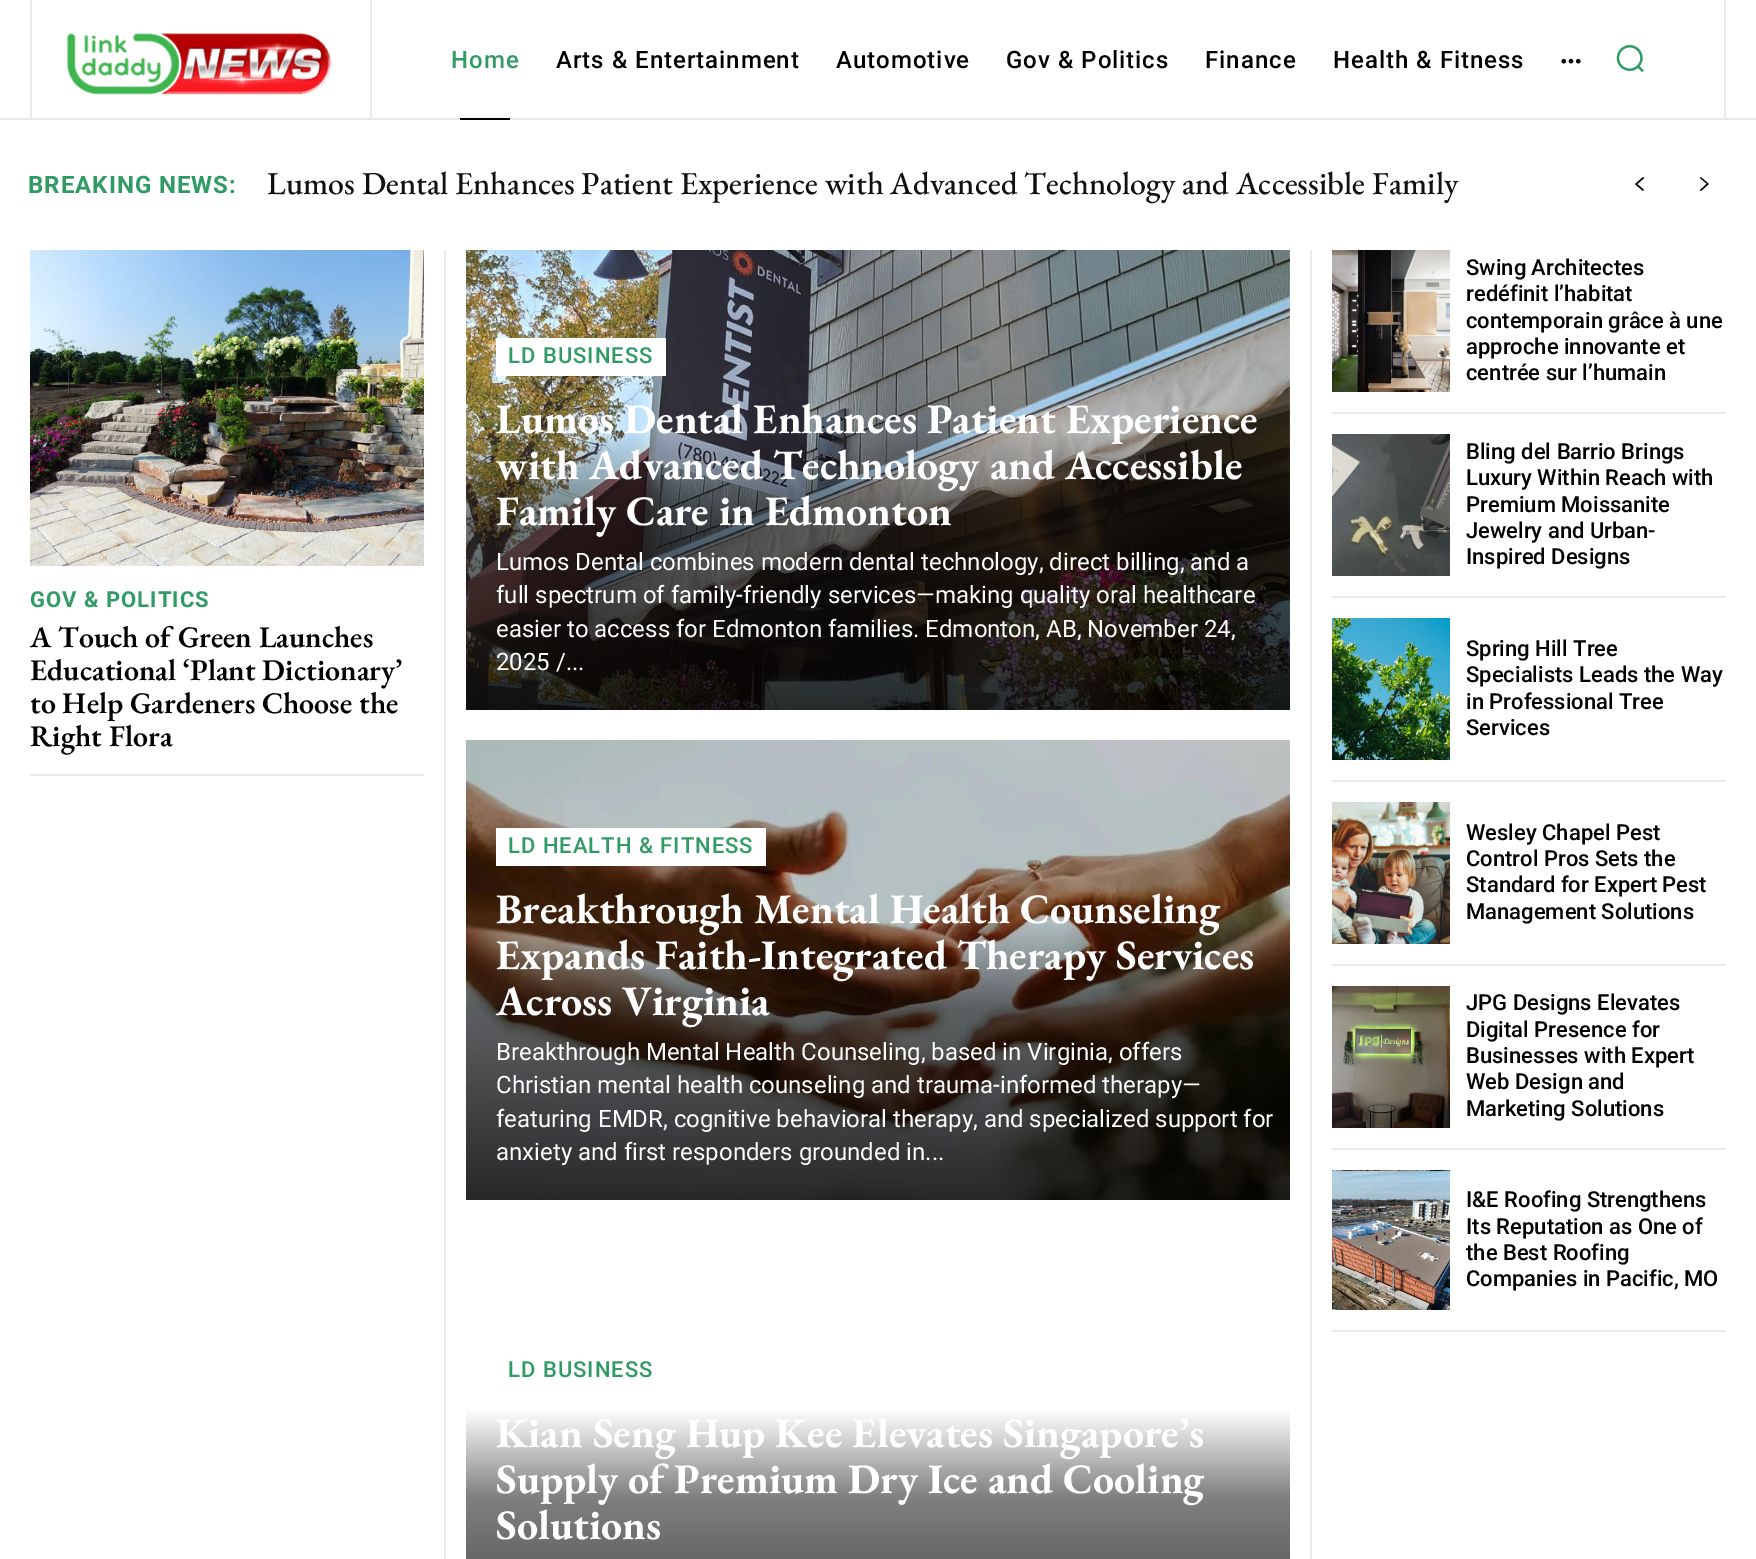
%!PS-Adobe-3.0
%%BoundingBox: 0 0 1756 1559
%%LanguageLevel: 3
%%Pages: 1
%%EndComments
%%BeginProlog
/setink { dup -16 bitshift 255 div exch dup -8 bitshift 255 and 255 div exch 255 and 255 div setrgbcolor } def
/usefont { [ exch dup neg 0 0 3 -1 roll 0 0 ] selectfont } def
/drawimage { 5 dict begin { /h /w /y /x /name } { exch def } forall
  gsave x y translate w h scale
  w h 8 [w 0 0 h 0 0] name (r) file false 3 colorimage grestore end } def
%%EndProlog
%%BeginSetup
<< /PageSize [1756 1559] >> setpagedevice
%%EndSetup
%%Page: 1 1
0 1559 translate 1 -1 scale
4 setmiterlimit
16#FFFFFF setink
0 0 1756 1559 rectfill
16#EAEAEA setink
0 118 1756 2 rectfill
30 0 2 118 rectfill
(img1.raw) 66 33 266 63 drawimage
1724 0 2 118 rectfill
370 0 2 118 rectfill
/Roboto-Medium 24 usefont
16#309B65 setink
451 68 moveto 1 0 (Home) ashow
16#000000 setink
460 118 50 2 rectfill
556 68 moveto 1 0 (Arts & Entertainment) ashow
836 68 moveto 1 0 (Automotive) ashow
1006 68 moveto 1 0 (Gov & Politics) ashow
1205 68 moveto 1 0 (Finance) ashow
1333 68 moveto 1 0 (Health & Fitness) ashow
(img2.raw) 1561 58 20 6 drawimage
(img3.raw) 1616 45 28 28 drawimage
/Roboto-Bold 24 usefont
16#309B65 setink
28 193 moveto 1 0 (BREAKING NEWS:) ashow
/EBGaramond-Medium 32 usefont
16#111111 setink
267 194 moveto (Lumos Dental Enhances Patient Experience with Advanced Technology and Accessible Family) show
(img4.raw) 1635 177 9 14 drawimage
(img5.raw) 1700 177 9 14 drawimage
16#EAEAEA setink
30 774 394 2 rectfill
(img6.raw) 30 250 394 316 drawimage
/Roboto-Bold 22 usefont
16#309B65 setink
30 607 moveto 1 0 (GOV & POLITICS) ashow
/EBGaramond-SemiBold 30 usefont
16#000000 setink
[
    [(A Touch of Green Launches) 30 647]
    [(Educational ‘Plant Dictionary’) 30 680]
    [(to Help Gardeners Choose the) 30 713]
    [(Right Flora) 30 746]
] { aload pop moveto show } forall
16#EAEAEA setink
1310 250 2 1309 rectfill
444 250 2 1309 rectfill
(img7.raw) 466 250 824 460 drawimage
16#FFFFFF setink
496 338 170 38 rectfill
/Roboto-Medium 22 usefont
16#309B65 setink
508 363 moveto 1 0 (LD BUSINESS) ashow
/EBGaramond-Bold 42 usefont
16#FFFFFF setink
[
    [(Lumos Dental Enhances Patient Experience) 496 433]
    [(with Advanced Technology and Accessible) 496 479]
    [(Family Care in Edmonton) 496 525]
] { aload pop moveto show } forall
/Roboto-Regular 24 usefont
[
    [(Lumos Dental combines modern dental technology, direct billing, and a) 496 570]
    [(full spectrum of family-friendly services—making quality oral healthcare) 496 603]
    [(easier to access for Edmonton families. Edmonton, AB, November 24,) 496 637]
    [(2025 /...) 496 670]
] { aload pop moveto show } forall
(img8.raw) 466 740 824 460 drawimage
496 828 270 38 rectfill
/Roboto-Medium 22 usefont
16#309B65 setink
508 853 moveto 1 0 (LD HEALTH & FITNESS) ashow
/EBGaramond-Bold 42 usefont
16#FFFFFF setink
[
    [(Breakthrough Mental Health Counseling) 496 923]
    [(Expands Faith-Integrated Therapy Services) 496 969]
    [(Across Virginia) 496 1015]
] { aload pop moveto show } forall
/Roboto-Regular 24 usefont
[
    [(Breakthrough Mental Health Counseling, based in Virginia, offers) 496 1060]
    [(Christian mental health counseling and trauma-informed therapy—) 496 1093]
    [(featuring EMDR, cognitive behavioral therapy, and specialized support for) 496 1127]
    [(anxiety and first responders grounded in...) 496 1160]
] { aload pop moveto show } forall
/Roboto-Medium 22 usefont
16#309B65 setink
508 1377 moveto 1 0 (LD BUSINESS) ashow
gsave 466 1411 moveto 1290 1411 lineto 1290 1559 lineto 466 1559 lineto closepath clip newpath
<< /ShadingType 2 /ColorSpace /DeviceRGB /Coords [878 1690 878 1230] /Extend [true true] /Function << /FunctionType 3 /Domain [0 1] /Functions [<< /FunctionType 2 /Domain [0 1] /C0 [0.2 0.2 0.2] /C1 [0.502 0.502 0.502] /N 1 >> << /FunctionType 2 /Domain [0 1] /C0 [0.502 0.502 0.502] /C1 [1 1 1] /N 1 >> << /FunctionType 2 /Domain [0 1] /C0 [1 1 1] /C1 [1 1 1] /N 1 >>] /Bounds [0.42 0.61] /Encode [0 1 0 1 0 1] >> >> shfill grestore
/EBGaramond-Bold 42 usefont
16#FFFFFF setink
[
    [(Kian Seng Hup Kee Elevates Singapore’s) 496 1447]
    [(Supply of Premium Dry Ice and Cooling) 496 1493]
    [(Solutions) 496 1539]
] { aload pop moveto show } forall
16#EAEAEA setink
1332 412 394 2 rectfill
(img9.raw) 1332 250 118 142 drawimage
/Roboto-Medium 22 usefont
16#000000 setink
[
    [(Swing Architectes) 1466 275]
    [(redéfinit l’habitat) 1466 301]
    [(contemporain grâce à une) 1466 328]
    [(approche innovante et) 1466 354]
    [(centrée sur l’humain) 1466 380]
] { aload pop moveto show } forall
16#EAEAEA setink
1332 596 394 2 rectfill
(img10.raw) 1332 434 118 142 drawimage
16#000000 setink
[
    [(Bling del Barrio Brings) 1466 459]
    [(Luxury Within Reach with) 1466 485]
    [(Premium Moissanite) 1466 512]
    [(Jewelry and Urban-) 1466 538]
    [(Inspired Designs) 1466 564]
] { aload pop moveto show } forall
16#EAEAEA setink
1332 780 394 2 rectfill
(img11.raw) 1332 618 118 142 drawimage
16#000000 setink
[
    [(Spring Hill Tree) 1466 656]
    [(Specialists Leads the Way) 1466 682]
    [(in Professional Tree) 1466 709]
    [(Services) 1466 735]
] { aload pop moveto show } forall
16#EAEAEA setink
1332 964 394 2 rectfill
(img12.raw) 1332 802 118 142 drawimage
16#000000 setink
[
    [(Wesley Chapel Pest) 1466 840]
    [(Control Pros Sets the) 1466 866]
    [(Standard for Expert Pest) 1466 892]
    [(Management Solutions) 1466 919]
] { aload pop moveto show } forall
16#EAEAEA setink
1332 1148 394 2 rectfill
(img13.raw) 1332 986 118 142 drawimage
16#000000 setink
[
    [(JPG Designs Elevates) 1466 1010]
    [(Digital Presence for) 1466 1037]
    [(Businesses with Expert) 1466 1063]
    [(Web Design and) 1466 1089]
    [(Marketing Solutions) 1466 1116]
] { aload pop moveto show } forall
16#EAEAEA setink
1332 1330 394 2 rectfill
(img14.raw) 1332 1170 118 140 drawimage
16#000000 setink
[
    [(I&E Roofing Strengthens) 1466 1207]
    [(Its Reputation as One of) 1466 1234]
    [(the Best Roofing) 1466 1260]
    [(Companies in Pacific, MO) 1466 1286]
] { aload pop moveto show } forall
showpage
%%EOF
